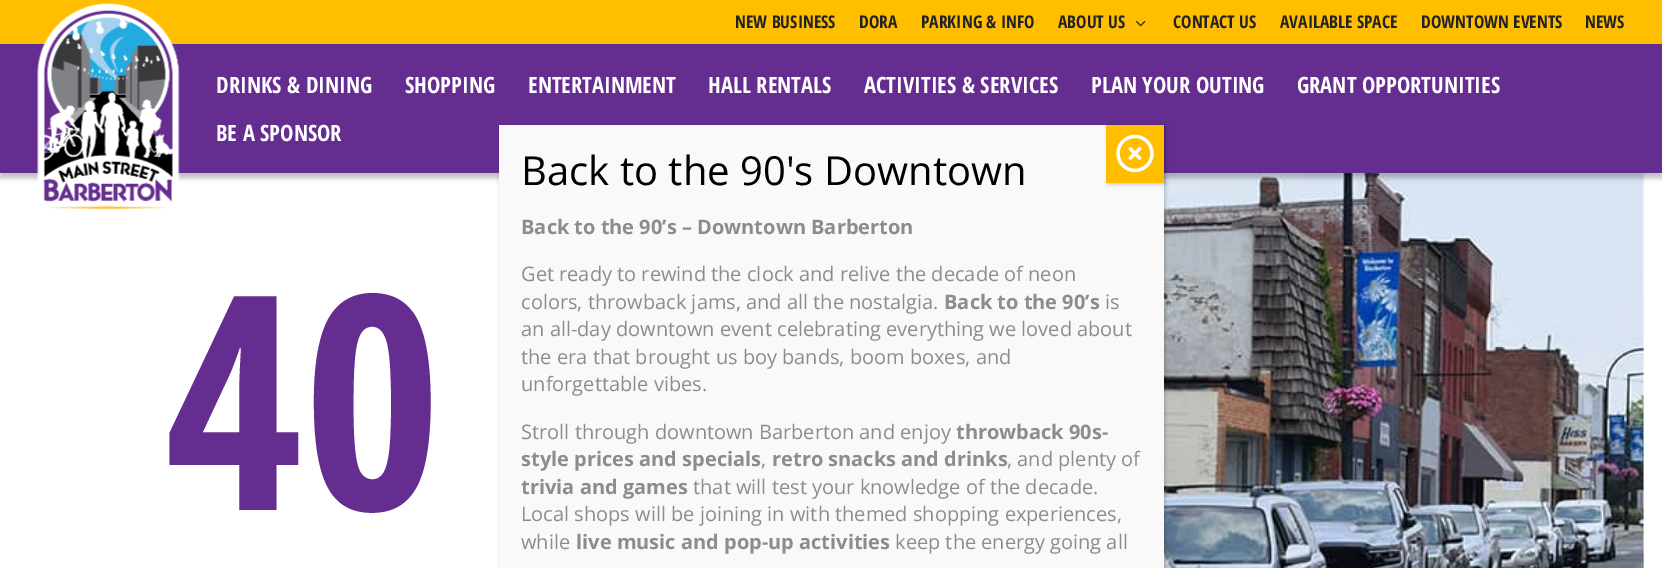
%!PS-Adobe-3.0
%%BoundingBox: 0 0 1662 568
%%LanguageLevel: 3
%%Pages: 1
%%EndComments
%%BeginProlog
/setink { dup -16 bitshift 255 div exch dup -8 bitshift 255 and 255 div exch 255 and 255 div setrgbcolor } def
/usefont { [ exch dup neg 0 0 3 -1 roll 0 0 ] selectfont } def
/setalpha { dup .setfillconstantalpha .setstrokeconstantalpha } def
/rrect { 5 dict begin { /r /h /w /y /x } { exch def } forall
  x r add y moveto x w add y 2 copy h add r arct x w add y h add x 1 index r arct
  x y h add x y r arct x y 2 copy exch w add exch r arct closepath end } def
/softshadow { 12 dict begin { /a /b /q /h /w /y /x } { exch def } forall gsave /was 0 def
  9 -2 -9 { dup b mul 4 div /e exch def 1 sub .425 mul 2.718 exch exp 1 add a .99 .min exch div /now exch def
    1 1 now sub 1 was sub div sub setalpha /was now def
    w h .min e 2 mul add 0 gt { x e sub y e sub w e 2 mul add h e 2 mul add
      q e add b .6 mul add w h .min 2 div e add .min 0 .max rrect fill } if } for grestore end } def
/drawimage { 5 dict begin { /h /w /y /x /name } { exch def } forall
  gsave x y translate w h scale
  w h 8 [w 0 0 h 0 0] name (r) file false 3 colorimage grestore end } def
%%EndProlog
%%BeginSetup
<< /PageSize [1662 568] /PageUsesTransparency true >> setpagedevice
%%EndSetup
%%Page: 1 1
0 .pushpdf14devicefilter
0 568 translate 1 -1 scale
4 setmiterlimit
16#FFFFFF setink
0 0 1662 568 rectfill
16#FFBE00 setink
0 0 1662 44 rectfill
/OpenSansCondensed-Bold 17.5 usefont
16#232323 setink
[
    [(NEW BUSINESS) 735 28]
    [(DORA) 859 28]
    [(PARKING & INFO) 921 28]
    [(ABOUT US) 1058 28]
] { aload pop moveto show } forall
(img1.raw) 1136 21 10 6 drawimage
[
    [(CONTACT US) 1173 28]
    [(AVAILABLE SPACE) 1280 28]
    [(DOWNTOWN EVENTS) 1421 28]
    [(NEWS) 1585 28]
] { aload pop moveto show } forall
(img3.raw) 1164 173 480 395 drawimage
16#000000 setink
0 49 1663 129 0 2.5 0.25 softshadow
16#662D91 setink
0 44 1662 129 rectfill
(img2.raw) 37 3 143 207 drawimage
/OpenSansCondensed-Bold 22.5 usefont
16#FFFFFF setink
[
    [(DRINKS & DINING) 216 93]
    [(SHOPPING) 405 93]
    [(ENTERTAINMENT) 528 93]
    [(HALL RENTALS) 708 93]
    [(ACTIVITIES & SERVICES) 864 93]
    [(PLAN YOUR OUTING) 1091 93]
    [(GRANT OPPORTUNITIES) 1297 93]
    [(BE A SPONSOR) 216 141]
] { aload pop moveto show } forall
/OpenSansCondensed-Bold 300 usefont
16#662D91 setink
164 510 moveto (40) show
16#020202 setink
500 126 665 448 0 2 0.23 softshadow
16#F9F9F9 setink
499 125 665 443 rectfill
/OpenSans-Regular 40 usefont
16#000000 setink
521 185 moveto (Back to the 90's Downtown) show
16#020202 setink
1108 126 57 58 0 2 0.23 softshadow
16#FFBE00 setink
1106 125 58 58 rectfill
(img4.raw) 1116 134 38 39 drawimage
/OpenSans-Bold 20 usefont
16#8C8C8C setink
521 234 moveto (Back to the 90’s – Downtown Barberton) show
/OpenSans-Regular 20 usefont
521 281 moveto (Get ready to rewind the clock and relive the decade of neon) show
521 309 moveto (colors, throwback jams, and all the nostalgia.) show
/OpenSans-Bold 20 usefont
944 309 moveto (Back to the 90’s) show
/OpenSans-Regular 20 usefont
[
    [(is) 1105 309]
    [(an all-day downtown event celebrating everything we loved about) 521 336]
    [(the era that brought us boy bands, boom boxes, and) 521 364]
    [(unforgettable vibes.) 521 391]
    [(Stroll through downtown Barberton and enjoy) 521 439]
] { aload pop moveto show } forall
/OpenSans-Bold 20 usefont
956 439 moveto (throwback 90s-) show
521 466 moveto (style prices and specials) show
/OpenSans-Regular 20 usefont
761 466 moveto (,) show
/OpenSans-Bold 20 usefont
772 466 moveto (retro snacks and drinks) show
/OpenSans-Regular 20 usefont
1007 466 moveto (, and plenty of) show
/OpenSans-Bold 20 usefont
521 494 moveto (trivia and games) show
/OpenSans-Regular 20 usefont
[
    [(that will test your knowledge of the decade.) 693 494]
    [(Local shops will be joining in with themed shopping experiences,) 521 521]
    [(while) 521 549]
] { aload pop moveto show } forall
/OpenSans-Bold 20 usefont
576 549 moveto (live music and pop-up activities) show
/OpenSans-Regular 20 usefont
895 549 moveto (keep the energy going all) show
.poppdf14devicefilter showpage
%%EOF
